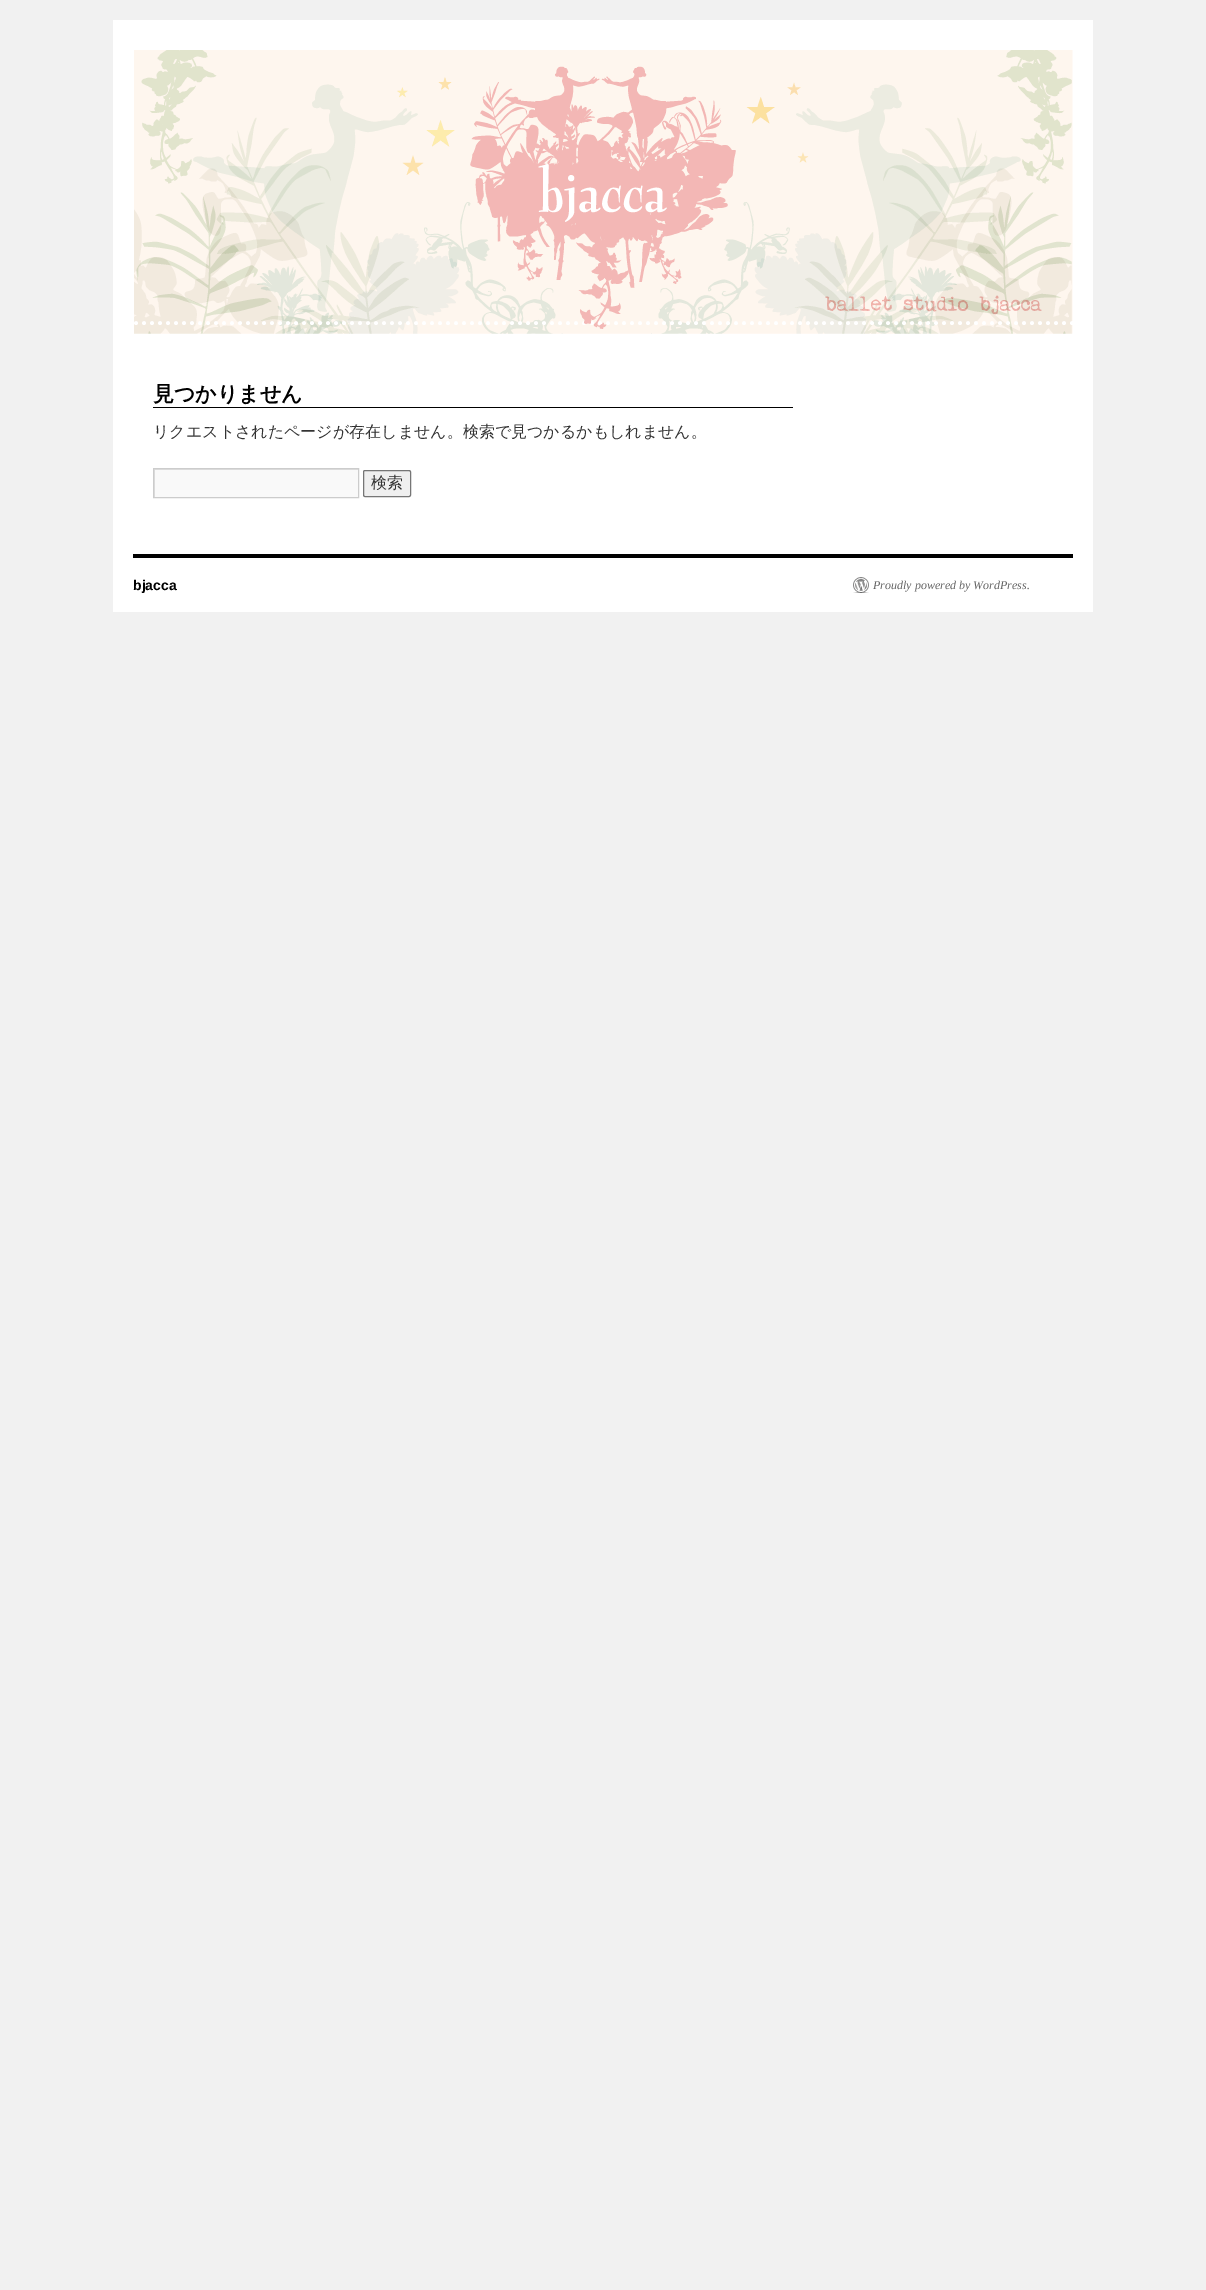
%!PS-Adobe-3.0
%%BoundingBox: 0 0 1206 2290
%%LanguageLevel: 3
%%Pages: 1
%%EndComments
%%BeginProlog
/setink { dup -16 bitshift 255 div exch dup -8 bitshift 255 and 255 div exch 255 and 255 div setrgbcolor } def
/usefont { [ exch dup neg 0 0 3 -1 roll 0 0 ] selectfont } def
/rrect { 5 dict begin { /r /h /w /y /x } { exch def } forall
  x r add y moveto x w add y 2 copy h add r arct x w add y h add x 1 index r arct
  x y h add x y r arct x y 2 copy exch w add exch r arct closepath end } def
/drawimage { 5 dict begin { /h /w /y /x /name } { exch def } forall
  gsave x y translate w h scale
  w h 8 [w 0 0 h 0 0] name (r) file false 3 colorimage grestore end } def
%%EndProlog
%%BeginSetup
<< /PageSize [1206 2290] >> setpagedevice
%%EndSetup
%%Page: 1 1
0 2290 translate 1 -1 scale
4 setmiterlimit
16#F1F1F1 setink
0 0 1206 2290 rectfill
16#FFFFFF setink
113 20 980 592 rectfill
(img1.raw) 134 50 939 284 drawimage
16#000000 setink
153 407 640 1 rectfill
/WenQuanYiZenHei-Bold 21 usefont
153 401 moveto (見つかりません) show
/WenQuanYiZenHei-Medium 16 usefont
16#333333 setink
153 437 moveto (リクエストされたページが存在しません。検索で見つかるかもしれません。) show
16#F9F9F9 setink
155 470 203 27 rectfill
gsave
154 469 204 28 rectclip
16#E0E0E0 setink
55 370 moveto 457 370 lineto 457 596 lineto 55 596 lineto closepath 155 470 moveto 359 470 lineto 359 498 lineto 155 498 lineto closepath eofill
grestore
16#CCCCCC setink
153.5 468.5 205 29 rectstroke
16#EFEFEF setink
363.5 470.5 47 26 1.5 rrect gsave fill grestore
16#767676 setink
stroke
16#333333 setink
371 488 moveto (検索) show
16#000000 setink
133 554 940 4 rectfill
/LiberationSans-Bold 14 usefont
133 590 moveto (bjacca) show
(img2.raw) 853 577 16 16 drawimage
/LiberationSerif-Italic 12 usefont
16#666666 setink
873 589 moveto (Proudly powered by WordPress.) show
showpage
%%EOF
